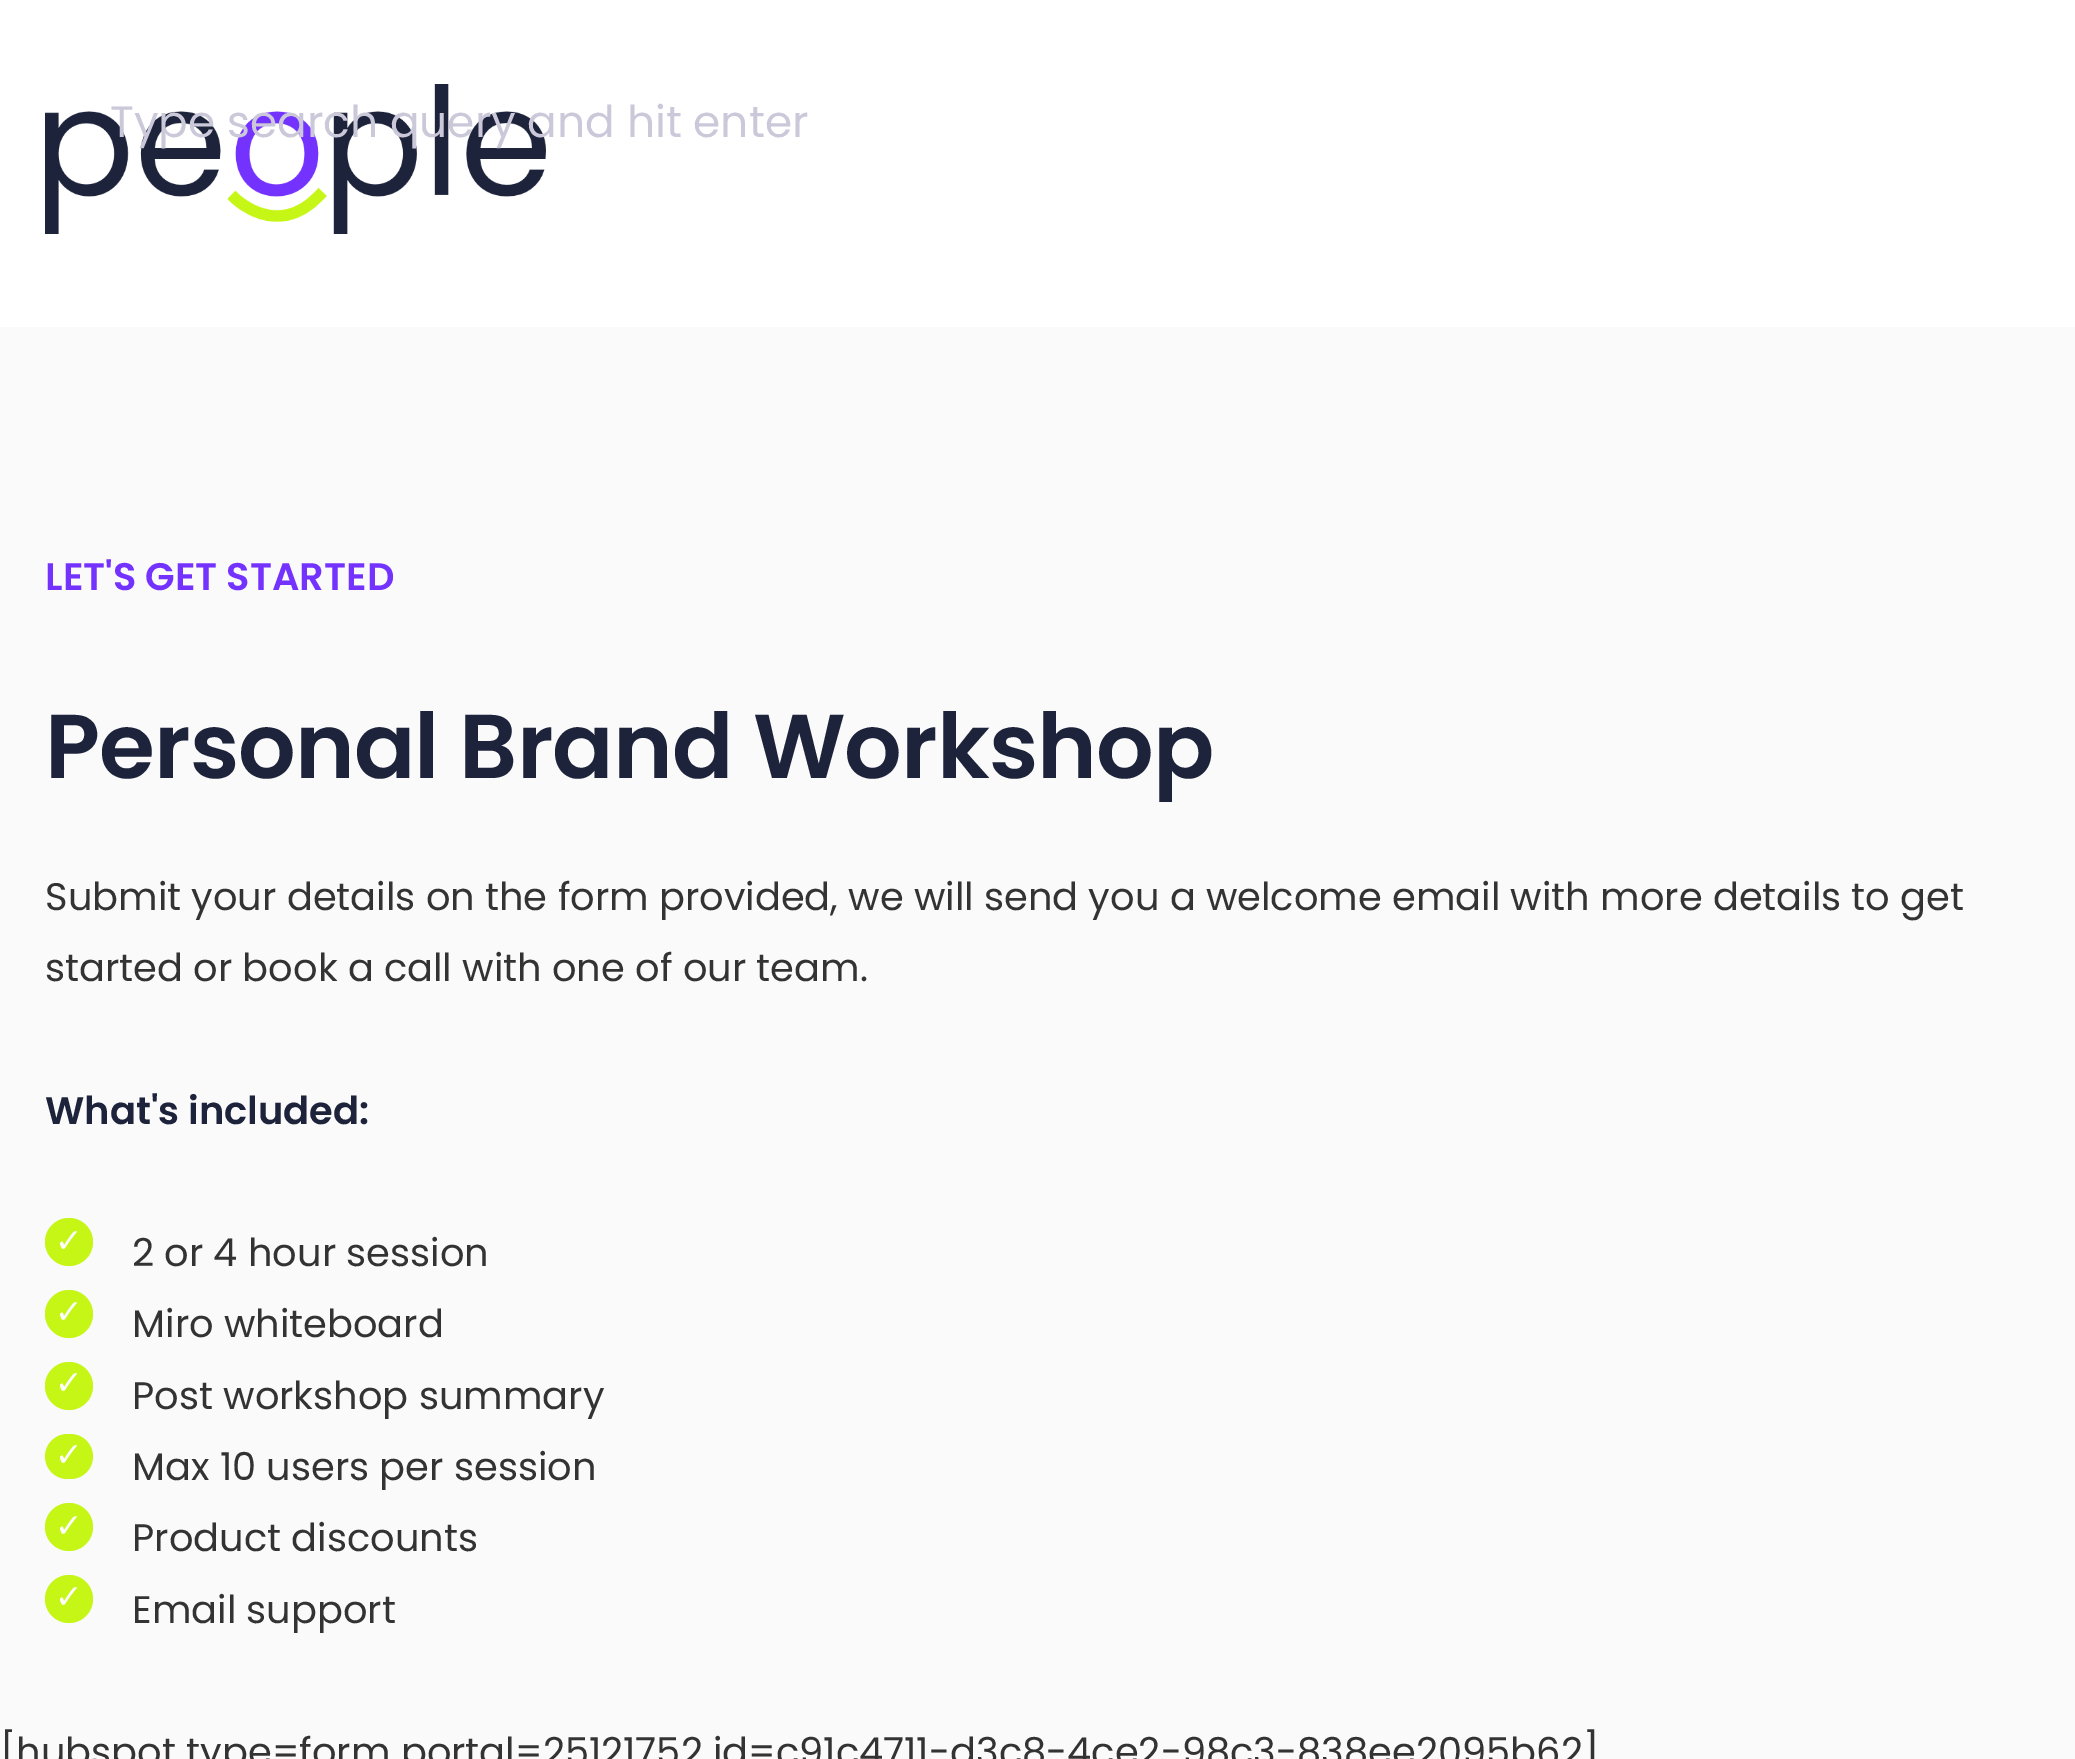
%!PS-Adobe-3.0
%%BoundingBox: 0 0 2075 1759
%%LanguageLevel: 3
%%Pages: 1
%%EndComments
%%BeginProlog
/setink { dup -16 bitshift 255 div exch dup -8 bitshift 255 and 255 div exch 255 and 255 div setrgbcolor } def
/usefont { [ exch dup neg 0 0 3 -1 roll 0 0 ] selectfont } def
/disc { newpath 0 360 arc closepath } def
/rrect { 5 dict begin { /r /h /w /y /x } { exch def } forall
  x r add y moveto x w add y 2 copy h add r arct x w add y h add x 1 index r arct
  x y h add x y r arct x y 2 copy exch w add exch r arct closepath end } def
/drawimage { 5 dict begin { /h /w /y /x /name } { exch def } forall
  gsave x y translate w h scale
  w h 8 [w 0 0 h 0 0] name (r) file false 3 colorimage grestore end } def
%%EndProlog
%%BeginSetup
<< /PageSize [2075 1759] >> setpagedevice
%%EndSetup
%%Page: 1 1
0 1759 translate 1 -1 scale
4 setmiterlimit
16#FFFFFF setink
0 0 2075 1759 rectfill
(img1.raw) 45 84 501 150 drawimage
/Poppins-Regular 43.9 usefont
16#CBC8D9 setink
110 137 moveto (Type search query and hit enter) show
16#FAFAFA setink
0 327 2075 1432 rectfill
/Poppins-SemiBold 38.4 usefont
16#7432FF setink
45 590 moveto (LET'S GET STARTED) show
/Poppins-SemiBold 90.5 usefont
16#1D233A setink
45 778 moveto -0.9 0 (Personal Brand Workshop) ashow
/Poppins-Regular 38.4 usefont
16#333333 setink
45 910 moveto (Submit your details on the form provided, we will send you a welcome email with more details to get) show
45 981 moveto (started or book a call with one of our team.) show
/Poppins-SemiBold 38.4 usefont
16#1D233A setink
45 1124 moveto (What's included:) show
16#C5F616 setink
69 1242 24 disc fill
/DejaVuSans-Regular 33 usefont
16#FFFFFF setink
55 1252 moveto (✓) show
/Poppins-Regular 38.4 usefont
16#333333 setink
132 1266 moveto (2 or 4 hour session) show
16#C5F616 setink
69 1314 24 disc fill
/DejaVuSans-Regular 33 usefont
16#FFFFFF setink
55 1323 moveto (✓) show
/Poppins-Regular 38.4 usefont
16#333333 setink
132 1337 moveto (Miro whiteboard) show
16#C5F616 setink
69 1386 24 disc fill
/DejaVuSans-Regular 33 usefont
16#FFFFFF setink
55 1394 moveto (✓) show
/Poppins-Regular 38.4 usefont
16#333333 setink
132 1409 moveto (Post workshop summary) show
16#C5F616 setink
45 1434 48 45 22.5 rrect fill
/DejaVuSans-Regular 33 usefont
16#FFFFFF setink
55 1466 moveto (✓) show
/Poppins-Regular 38.4 usefont
16#333333 setink
132 1480 moveto (Max 10 users per session) show
16#C5F616 setink
69 1527 24 disc fill
/DejaVuSans-Regular 33 usefont
16#FFFFFF setink
55 1537 moveto (✓) show
/Poppins-Regular 38.4 usefont
16#333333 setink
132 1551 moveto (Product discounts) show
16#C5F616 setink
69 1599 24 disc fill
/DejaVuSans-Regular 33 usefont
16#FFFFFF setink
55 1608 moveto (✓) show
/Poppins-Regular 38.4 usefont
16#333333 setink
132 1623 moveto (Email support) show
0 1765 moveto ([hubspot type=form portal=25121752 id=c91c4711-d3c8-4ce2-98c3-838ee2095b62]) show
showpage
%%EOF
